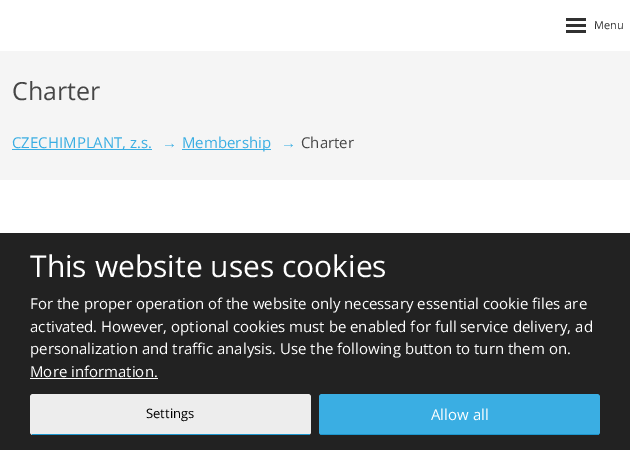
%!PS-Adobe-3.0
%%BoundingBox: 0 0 630 450
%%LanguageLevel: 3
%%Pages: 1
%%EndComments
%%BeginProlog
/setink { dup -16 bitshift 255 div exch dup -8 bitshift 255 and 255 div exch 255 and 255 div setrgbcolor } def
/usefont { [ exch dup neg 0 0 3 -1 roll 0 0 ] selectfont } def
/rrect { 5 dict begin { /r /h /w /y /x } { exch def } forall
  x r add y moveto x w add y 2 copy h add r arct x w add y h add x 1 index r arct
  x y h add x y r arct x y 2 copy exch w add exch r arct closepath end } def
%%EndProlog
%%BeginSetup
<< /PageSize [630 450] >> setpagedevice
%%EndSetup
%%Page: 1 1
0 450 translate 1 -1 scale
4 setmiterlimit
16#FFFFFF setink
0 0 630 450 rectfill
16#313131 setink
566 18 20 3 rectfill
566 24 20 3 rectfill
/OpenSans-Regular 11 usefont
594 29 moveto (Menu) show
566 30 20 3 rectfill
16#F5F5F5 setink
0 51 630 129 rectfill
/OpenSans-Regular 25 usefont
16#464646 setink
12 100 moveto (Charter) show
16#3AAEE3 setink
12 149 140 1 rectfill
/OpenSans-Regular 15 usefont
12 148 moveto (CZECHIMPLANT, z.s.) show
/LiberationSans-Bold 15 usefont
162 148 moveto (→) show
182 149 89 1 rectfill
/OpenSans-Regular 15 usefont
182 148 moveto (Membership) show
/LiberationSans-Bold 15 usefont
281 148 moveto (→) show
/OpenSans-Regular 15 usefont
16#464646 setink
301 148 moveto (Charter) show
16#222222 setink
0 233 630 217 rectfill
/OpenSans-Regular 30 usefont
16#FFFFFF setink
30 277 moveto (This website uses cookies) show
/OpenSans-Regular 15 usefont
[
    [(For the proper operation of the website only necessary essential cookie files are) 30 309]
    [(activated. However, optional cookies must be enabled for full service delivery, ad) 30 332]
    [(personalization and traffic analysis. Use the following button to turn them on.) 30 354]
    [(More information.) 30 377]
] { aload pop moveto show } forall
30 378 128 1 rectfill
16#EDEDED setink
30 394 281 41 3 rrect fill
16#1D96CD setink
32 434 278 1 rectfill
/OpenSans-Regular 13 usefont
16#000000 setink
146 418 moveto (Settings) show
16#3AAEE3 setink
319 394 281 41 3 rrect fill
16#1D96CD setink
321 434 278 1 rectfill
/OpenSans-Regular 15 usefont
16#FFFFFF setink
431 420 moveto (Allow all) show
showpage
%%EOF
